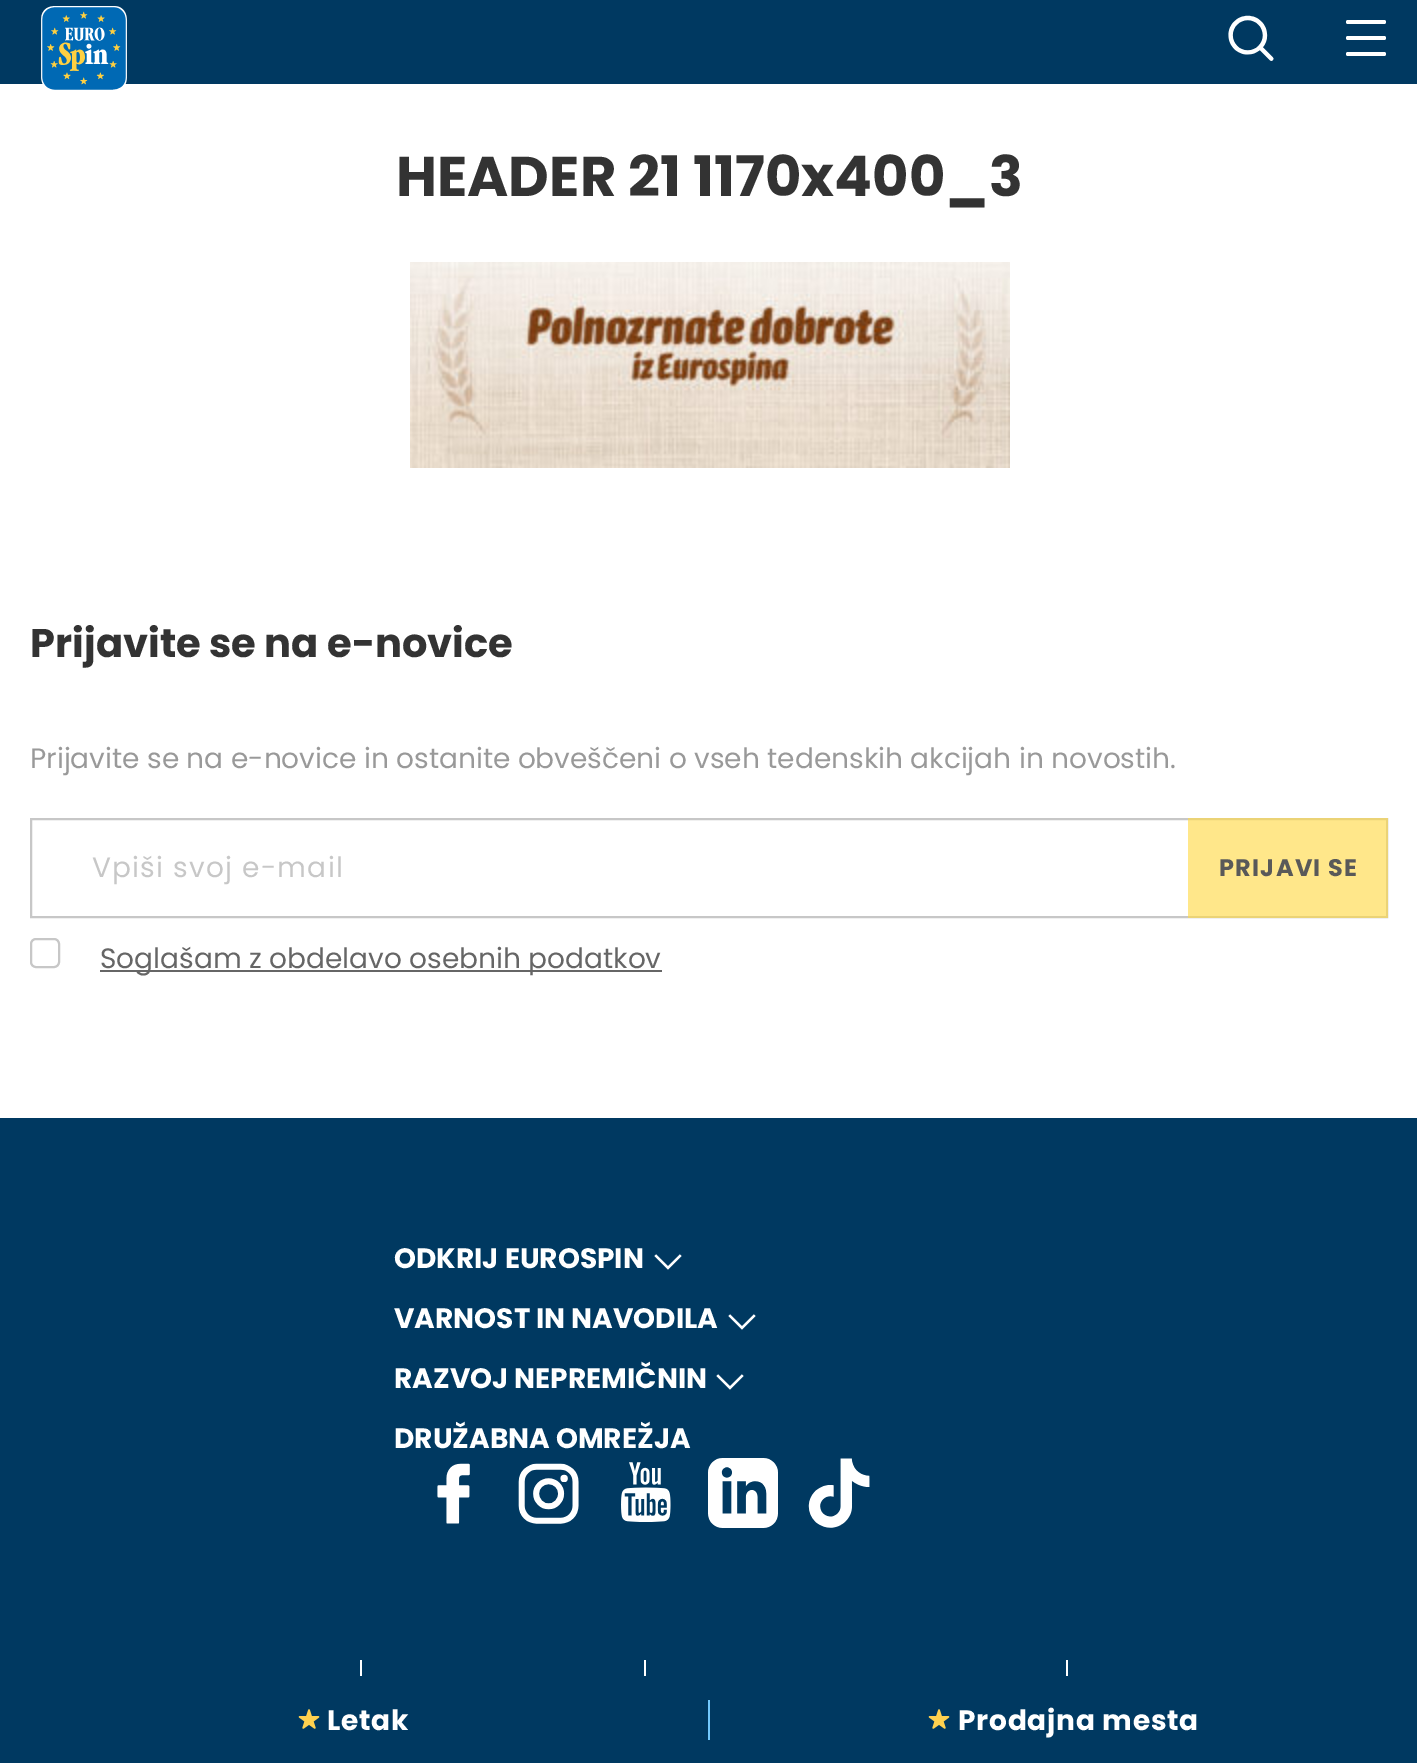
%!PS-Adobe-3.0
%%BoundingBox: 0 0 1417 1763
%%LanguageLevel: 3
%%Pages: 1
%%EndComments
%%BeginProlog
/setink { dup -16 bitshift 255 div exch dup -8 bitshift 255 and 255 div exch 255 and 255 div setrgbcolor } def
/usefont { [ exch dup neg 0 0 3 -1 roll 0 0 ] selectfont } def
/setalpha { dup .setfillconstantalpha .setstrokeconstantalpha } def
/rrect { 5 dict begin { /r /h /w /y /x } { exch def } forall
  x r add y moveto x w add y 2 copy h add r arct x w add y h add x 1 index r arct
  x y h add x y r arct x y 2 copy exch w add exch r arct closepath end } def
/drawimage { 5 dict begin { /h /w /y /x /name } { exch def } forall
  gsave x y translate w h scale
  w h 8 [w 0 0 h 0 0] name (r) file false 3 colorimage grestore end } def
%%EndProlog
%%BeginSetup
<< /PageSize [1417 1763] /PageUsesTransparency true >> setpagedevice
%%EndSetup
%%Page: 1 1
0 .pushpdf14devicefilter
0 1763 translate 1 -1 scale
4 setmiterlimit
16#FFFFFF setink
0 0 1417 1763 rectfill
16#003961 setink
0 0 1417 84 rectfill
(img1.raw) 41 6 86 84 drawimage
(img2.raw) 1228 15 46 46 drawimage
16#FFFFFF setink
1346 20 40 4 2 rrect fill
1346 36 40 4 2 rrect fill
1346 52 40 4 2 rrect fill
/Poppins-Bold 56 usefont
16#333333 setink
396 196 moveto (HEADER 21 1170x400_3) show
(img3.raw) 410 262 600 206 drawimage
/Poppins-Bold 40 usefont
30 657 moveto (Prijavite se na e-novice) show
/Poppins-Regular 28 usefont
16#999999 setink
30 768 moveto (Prijavite se na e-novice in ostanite obveščeni o vseh tedenskih akcijah in novostih.) show
16#C7C7C7 setink
2 setlinewidth
31 819 1356 98 rectstroke
92 877 moveto 1.25 0 (Vpiši svoj e-mail) ashow
0.65 setalpha
16#FFDA4B setink
1188 818 200 100 rectfill
/Poppins-Bold 24 usefont
1 setalpha
16#595959 setink
1219 876 moveto 1.25 0 (PRIJAVI SE) ashow
16#C7C7C7 setink
31 939 28 28 5 rrect stroke
16#666666 setink
100 970 562 2 rectfill
/Poppins-Regular 28 usefont
100 968 moveto (Soglašam z obdelavo osebnih podatkov) show
16#003961 setink
0 1118 1417 645 rectfill
/Poppins-Bold 28 usefont
16#FFFFFF setink
394 1268 moveto (ODKRIJ EUROSPIN) show
(img4.raw) 654 1254 28 16 drawimage
394 1328 moveto (VARNOST IN NAVODILA) show
(img4.raw) 728 1314 28 16 drawimage
394 1388 moveto (RAZVOJ NEPREMIČNIN) show
(img4.raw) 716 1374 28 16 drawimage
394 1448 moveto (DRUŽABNA OMREŽJA) show
(img5.raw) 437 1463 33 61 drawimage
(img6.raw) 518 1463 61 61 drawimage
(img7.raw) 621 1462 50 60 drawimage
(img8.raw) 708 1458 70 70 drawimage
(img9.raw) 808 1458 62 70 drawimage
[
    [360 1660 2 16 16#FFFFFF]
    [644 1660 2 16 16#FFFFFF]
    [1066 1660 2 16 16#FFFFFF]
    [708 1700 2 40 16#72C8FC]
] { aload pop setink rectfill } forall
(img10.raw) 298 1709 22 20 drawimage
16#FFFFFF setink
327 1730 moveto 0.75 0 (Letak) ashow
(img10.raw) 928 1709 22 20 drawimage
958 1730 moveto 0.75 0 (Prodajna mesta) ashow
.poppdf14devicefilter showpage
%%EOF
